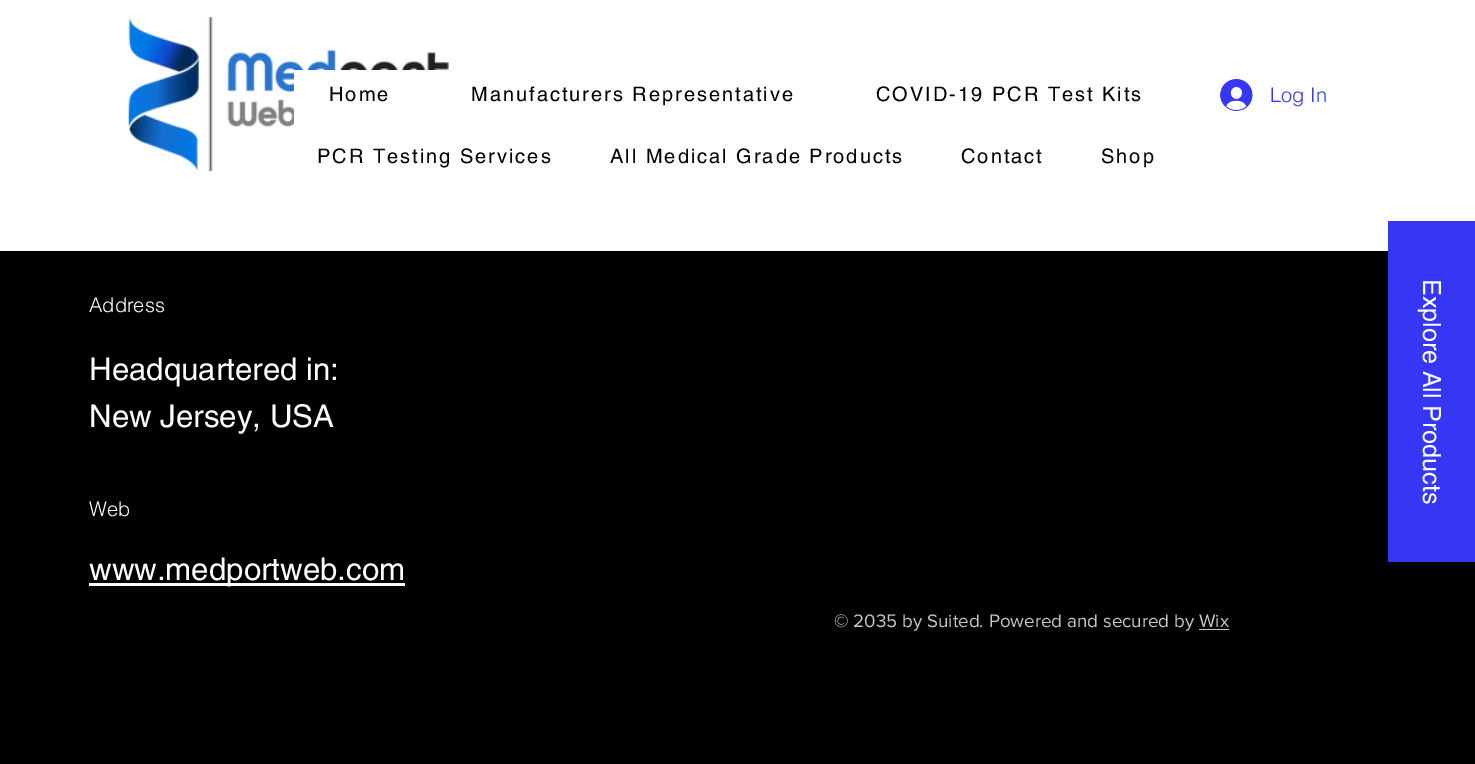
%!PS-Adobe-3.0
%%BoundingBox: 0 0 1475 764
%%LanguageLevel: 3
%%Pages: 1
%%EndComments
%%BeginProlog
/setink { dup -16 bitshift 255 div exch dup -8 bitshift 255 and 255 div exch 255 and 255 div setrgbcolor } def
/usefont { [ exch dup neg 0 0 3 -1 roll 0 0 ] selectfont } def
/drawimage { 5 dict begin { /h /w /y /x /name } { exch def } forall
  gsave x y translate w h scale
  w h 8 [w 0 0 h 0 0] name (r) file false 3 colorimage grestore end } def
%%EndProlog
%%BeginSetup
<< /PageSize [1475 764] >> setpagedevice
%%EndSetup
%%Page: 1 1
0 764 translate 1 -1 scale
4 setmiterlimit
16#000000 setink
0 0 1475 764 rectfill
16#FFFFFF setink
0 0 1475 251 rectfill
(img1.raw) 128 17 321 154 drawimage
294 70 155 55 rectfill
/helvetica-Regular 20 usefont
16#000000 setink
329 101 moveto 2 0 (Home) ashow
471 101 moveto 2 0 (Manufacturers Representative) ashow
876 101 moveto 2 0 (COVID-19 PCR Test Kits) ashow
317 163 moveto 2 0 (PCR Testing Services) ashow
610 163 moveto 2 0 (All Medical Grade Products) ashow
961 163 moveto 2 0 (Contact) ashow
1101 163 moveto 2 0 (Shop) ashow
(img2.raw) 1220 79 33 32 drawimage
/helvetica-Light 20 usefont
16#3637F5 setink
1270 102 moveto (Log In) show
16#FFFFFF setink
89 312 moveto (Address) show
/helvetica-Regular 31.25 usefont
89 380 moveto (Headquartered in:) show
89 427 moveto (New Jersey, USA) show
/helvetica-Light 20 usefont
89 516 moveto (Web) show
89 583 316 3 rectfill
/helvetica-Regular 31.25 usefont
89 580 moveto (www.medportweb.com) show
/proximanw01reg-Regular 18.75 usefont
16#C7C7C7 setink
834 627 moveto (© 2035 by Suited. Powered and secured by Wix) show
1199 629 30 1 rectfill
16#3637F5 setink
1388 221 87 341 rectfill
/helvetica-Regular 25 usefont
16#FFFFFF setink
gsave 1423 279 translate 90 rotate 0 0 moveto (Explore All Products) show grestore
showpage
%%EOF
